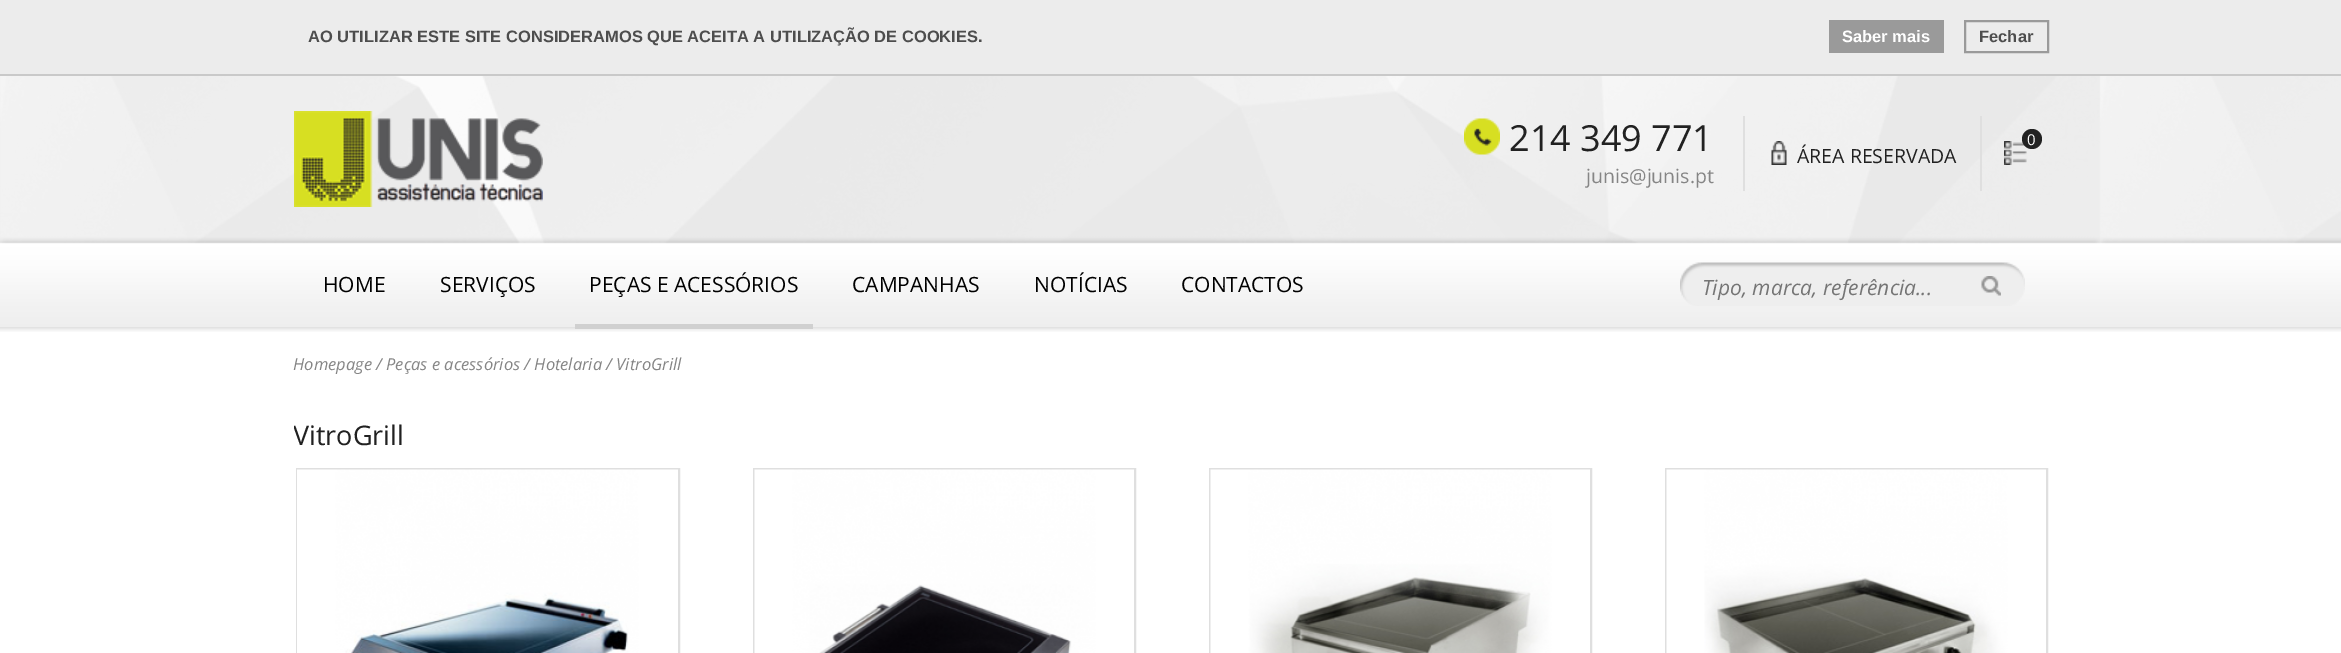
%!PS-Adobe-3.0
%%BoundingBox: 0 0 2341 653
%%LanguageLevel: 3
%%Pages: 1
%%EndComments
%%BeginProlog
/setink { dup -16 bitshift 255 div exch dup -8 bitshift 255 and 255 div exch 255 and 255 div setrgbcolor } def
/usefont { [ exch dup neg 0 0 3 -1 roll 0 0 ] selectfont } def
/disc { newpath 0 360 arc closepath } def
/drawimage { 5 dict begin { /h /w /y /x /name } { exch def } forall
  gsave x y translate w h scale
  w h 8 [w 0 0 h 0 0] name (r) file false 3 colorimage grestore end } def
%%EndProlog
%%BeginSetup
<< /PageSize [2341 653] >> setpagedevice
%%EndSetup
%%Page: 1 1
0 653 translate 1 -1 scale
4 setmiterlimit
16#FFFFFF setink
0 0 2341 653 rectfill
16#ECECEC setink
0 0 2341 74 rectfill
16#C9C9C9 setink
0 74 2341 2 rectfill
/LiberationSans-Bold 16.5 usefont
16#4D4D4D setink
308 42 moveto (AO UTILIZAR ESTE SITE CONSIDERAMOS QUE ACEITA A UTILIZAÇÃO DE COOKIES.) show
16#9A9A9A setink
1829 20 115 33 rectfill
16#FFFFFF setink
1842 42 moveto (Saber mais) show
16#9A9A9A setink
2 setlinewidth
1965 21 83 31 rectstroke
16#4D4D4D setink
1979 42 moveto (Fechar) show
(img1.raw) 0 76 2341 251 drawimage
(img2.raw) 294 111 249 96 drawimage
(img3.raw) 1464 118 36 37 drawimage
/OpenSans-Regular 36 usefont
16#212121 setink
1509 151 moveto (214 349 771) show
/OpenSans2-Regular 19.5 usefont
16#858585 setink
1586 183 moveto (junis@junis.pt) show
16#DFDFDF setink
1980 116 2 75 rectfill
(img4.raw) 2004 141 23 24 drawimage
16#222222 setink
2032 139 10 disc fill
/OpenSans2-Regular 15 usefont
16#FFFFFF setink
2027 145 moveto (0) show
16#DFDFDF setink
1743 116 2 75 rectfill
(img5.raw) 1771 141 16 24 drawimage
/OpenSans2-Regular 19.5 usefont
16#212121 setink
1797 163 moveto (ÁREA RESERVADA) show
/OpenSans2-Regular 21 usefont
16#000000 setink
323 292 moveto (HOME) show
440 292 moveto (SERVIÇOS) show
(img8.raw) 0 327 2341 5 drawimage
16#D0D0D0 setink
575 324 238 5 rectfill
16#000000 setink
[
    [(PEÇAS E ACESSÓRIOS) 589 292]
    [(CAMPANHAS) 852 292]
    [(NOTÍCIAS) 1034 292]
    [(CONTACTOS) 1181 292]
] { aload pop moveto show } forall
(img6.raw) 1680 262 345 44 drawimage
/OpenSans-Italic 21 usefont
16#757575 setink
1702 295 moveto (Tipo, marca, referência...) show
(img7.raw) 1981 276 20 20 drawimage
/OpenSans-Italic 16.5 usefont
16#858585 setink
293 370 moveto (Homepage / Peças e acessórios / Hotelaria / VitroGrill) show
gsave
294 420 1755 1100 rectclip
/OpenSans-Regular 27 usefont
16#212121 setink
293 445 moveto (VitroGrill) show
grestore
16#DFDFDF setink
297 469 382 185 rectstroke
(img9.raw) 297 469 381 184 drawimage
754 469 381 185 rectstroke
(img10.raw) 754 469 380 184 drawimage
1210 469 381 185 rectstroke
(img11.raw) 1210 469 380 184 drawimage
1666 469 381 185 rectstroke
(img12.raw) 1666 469 380 184 drawimage
showpage
%%EOF
